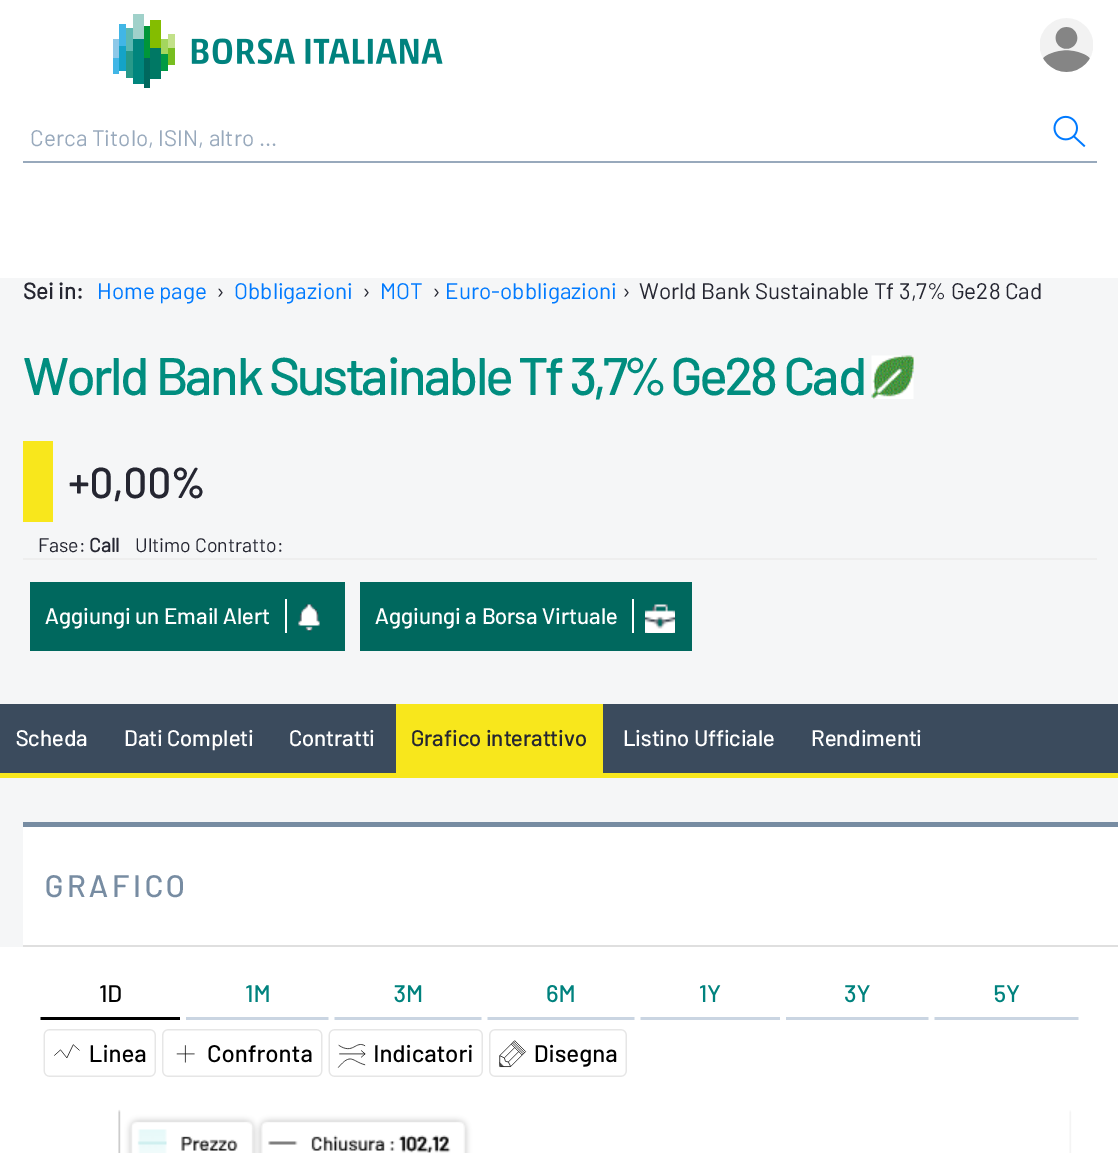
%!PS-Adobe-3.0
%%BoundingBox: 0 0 1118 1153
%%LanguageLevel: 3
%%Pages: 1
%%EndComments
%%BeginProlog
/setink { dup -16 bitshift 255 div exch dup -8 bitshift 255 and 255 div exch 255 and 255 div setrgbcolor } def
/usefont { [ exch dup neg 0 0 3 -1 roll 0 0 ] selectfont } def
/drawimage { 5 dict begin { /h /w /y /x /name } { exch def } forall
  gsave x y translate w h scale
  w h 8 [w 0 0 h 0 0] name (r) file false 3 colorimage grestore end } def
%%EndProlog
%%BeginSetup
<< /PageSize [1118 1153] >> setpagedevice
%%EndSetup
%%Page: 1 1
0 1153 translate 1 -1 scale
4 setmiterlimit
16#FFFFFF setink
0 0 1118 1153 rectfill
(img1.raw) 113 14 330 74 drawimage
(img2.raw) 1040 18 53 54 drawimage
16#98A9BC setink
23 161 1074 2 rectfill
/Barlow-Regular 22.5 usefont
30 146 moveto (Cerca Titolo, ISIN, altro ...) show
(img3.raw) 1053 115 33 33 drawimage
16#F5F6F7 setink
0 278 1118 669 rectfill
/Barlow-Bold 22.5 usefont
16#252631 setink
23 299 moveto (Sei in:) show
/Barlow-Regular 22.5 usefont
16#007AFF setink
97 299 moveto (Home page) show
16#252631 setink
216 299 moveto (›) show
16#007AFF setink
234 299 moveto (Obbligazioni) show
16#252631 setink
362 299 moveto (›) show
16#007AFF setink
380 299 moveto (MOT) show
16#252631 setink
432 299 moveto (›) show
16#007AFF setink
445 299 moveto (Euro-obbligazioni) show
16#252631 setink
622 299 moveto (›) show
639 299 moveto (World Bank Sustainable Tf 3,7% Ge28 Cad) show
/Barlow-Medium 52.9 usefont
16#008D7F setink
23 395 moveto -2.25 0 (World Bank Sustainable Tf 3,7% Ge28 Cad) ashow
(img4.raw) 871 355 43 44 drawimage
16#F8E71C setink
23 441 30 81 rectfill
/Barlow-Bold 41.5 usefont
16#252631 setink
68 498 moveto (+0,00%) show
/Barlow-Regular 19.5 usefont
38 552 moveto (Fase:) show
/Barlow-Bold 19.5 usefont
89 552 moveto (Call) show
/Barlow-Regular 19.5 usefont
135 552 moveto (Ultimo Contratto:) show
16#EEEEEE setink
23 558 1074 2 rectfill
16#00685E setink
30 582 315 69 rectfill
/Barlow-Medium 22.5 usefont
16#FFFFFF setink
45 624 moveto (Aggiungi un Email Alert) show
285 599 2 34 rectfill
(img5.raw) 298 604 22 28 drawimage
16#00685E setink
360 582 332 69 rectfill
16#FFFFFF setink
375 624 moveto (Aggiungi a Borsa Virtuale) show
632 599 2 34 rectfill
(img6.raw) 645 604 30 29 drawimage
16#3B4B5D setink
0 704 1118 69 rectfill
16#F8E71C setink
0 773 1118 5 rectfill
16#FFFFFF setink
[
    [(Scheda) 16 746]
    [(Dati Completi) 124 746]
    [(Contratti) 289 746]
] { aload pop moveto show } forall
16#F8E71C setink
396 704 207 69 rectfill
16#252631 setink
411 746 moveto (Grafico interattivo) show
16#FFFFFF setink
623 746 moveto (Listino Ufficiale) show
811 746 moveto (Rendimenti) show
[
    [23 827 1095 118 16#FFFFFF]
    [23 822 1095 5 16#778CA2]
    [23 945 1095 2 16#DFDFDF]
] { aload pop setink rectfill } forall
/Barlow-Medium 31 usefont
16#778CA2 setink
45 897 moveto 3.75 0 (GRAFICO) ashow
(img7.raw) 40 985 1039 168 drawimage
showpage
%%EOF
